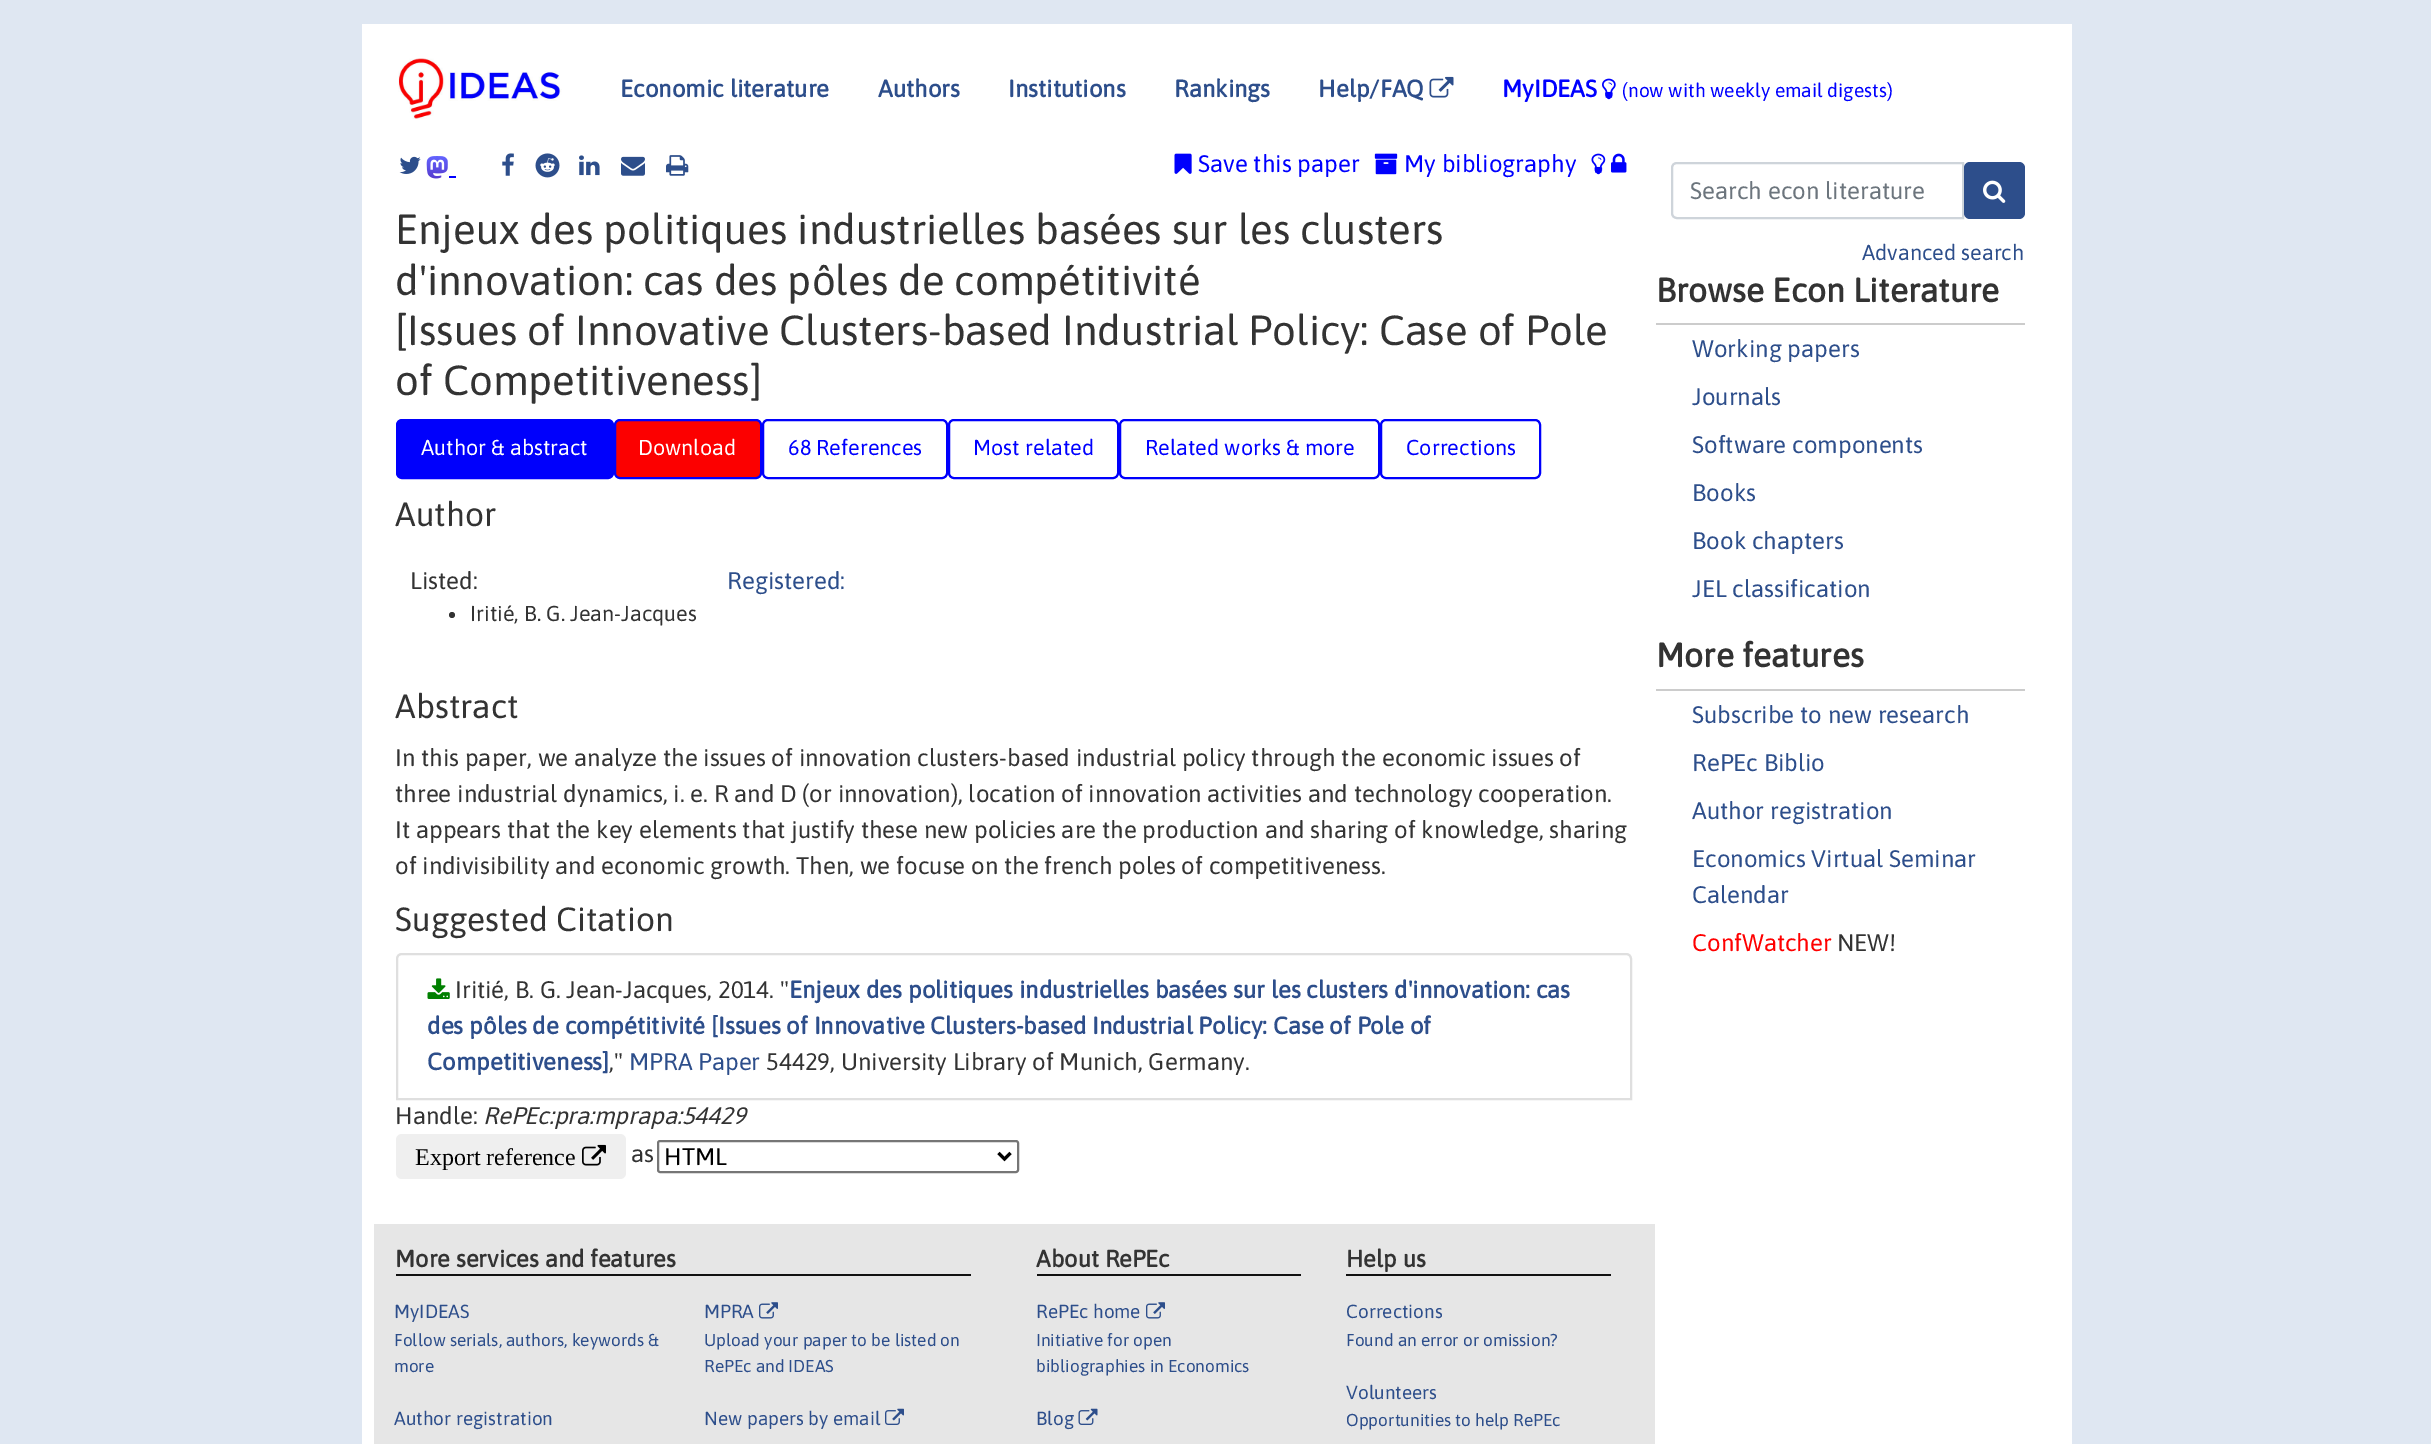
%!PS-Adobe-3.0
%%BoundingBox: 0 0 2431 1444
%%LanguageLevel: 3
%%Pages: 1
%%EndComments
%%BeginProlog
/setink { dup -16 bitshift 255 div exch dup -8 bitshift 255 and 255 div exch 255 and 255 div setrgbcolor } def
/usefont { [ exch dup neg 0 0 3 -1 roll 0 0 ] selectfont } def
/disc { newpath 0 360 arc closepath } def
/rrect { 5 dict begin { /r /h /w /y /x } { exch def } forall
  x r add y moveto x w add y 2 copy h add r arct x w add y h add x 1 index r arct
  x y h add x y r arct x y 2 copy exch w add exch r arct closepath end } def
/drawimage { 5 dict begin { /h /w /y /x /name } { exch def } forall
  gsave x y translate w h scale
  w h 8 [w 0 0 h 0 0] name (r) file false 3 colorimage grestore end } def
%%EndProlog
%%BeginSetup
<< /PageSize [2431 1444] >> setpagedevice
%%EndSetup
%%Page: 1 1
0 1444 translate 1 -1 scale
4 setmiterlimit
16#DFE7F2 setink
0 0 2431 1444 rectfill
16#FFFFFF setink
362 24 1710 1420 rectfill
(img1.raw) 398 58 164 61 drawimage
/Asap-Bold 24 usefont
16#2D4E8B setink
[
    [(Economic literature) 620 97]
    [(Authors) 878 97]
    [(Institutions) 1008 97]
    [(Rankings) 1174 97]
    [(Help/FAQ) 1318 97]
] { aload pop moveto show } forall
(img2.raw) 1429 76 25 22 drawimage
16#0000FF setink
1502 97 moveto (MyIDEAS) show
(img3.raw) 1602 78 14 22 drawimage
/Asap-Regular 19.25 usefont
1622 97 moveto (\(now with weekly email digests\)) show
(img4.raw) 399 156 22 18 drawimage
(img5.raw) 426 156 22 23 drawimage
449 176 7 2 rectfill
(img6.raw) 502 153 12 23 drawimage
(img7.raw) 535 153 25 25 drawimage
(img8.raw) 579 155 21 21 drawimage
(img9.raw) 621 156 24 20 drawimage
(img10.raw) 666 155 23 21 drawimage
(img11.raw) 1174 153 18 21 drawimage
/Asap-Regular 24 usefont
1198 172 moveto (Save this paper) show
(img12.raw) 1374 153 24 22 drawimage
1404 172 moveto (My bibliography) show
(img13.raw) 1591 153 15 22 drawimage
(img14.raw) 1611 153 16 20 drawimage
/Asap-Regular 42 usefont
16#333333 setink
[
    [(Enjeux des politiques industrielles basées sur les clusters) 395 244]
    [(d'innovation: cas des pôles de compétitivité) 395 295]
    [([Issues of Innovative Clusters-based Industrial Policy: Case of Pole) 395 345]
    [(of Competitiveness]) 395 395]
] { aload pop moveto show } forall
16#0000FC setink
397 420 216 58 5 rrect gsave fill grestore
2 setlinewidth
stroke
/Asap-Regular 21.6 usefont
16#FFFFFF setink
421 455 moveto (Author & abstract) show
16#FC0000 setink
615 420 146 58 5 rrect gsave fill grestore
16#0000FC setink
stroke
16#FFFFFF setink
638 455 moveto (Download) show
16#0000FC setink
763 420 184 58 5 rrect stroke
16#0000FF setink
788 455 moveto (68 References) show
16#0000FC setink
949 420 169 58 5 rrect stroke
16#0000FF setink
973 455 moveto (Most related) show
16#0000FC setink
1120 420 259 58 5 rrect stroke
16#0000FF setink
1145 455 moveto (Related works & more) show
16#0000FC setink
1381 420 159 58 5 rrect stroke
16#0000FF setink
1406 455 moveto (Corrections) show
/Asap-Regular 33.6 usefont
16#333333 setink
395 526 moveto (Author) show
/Asap-Regular 24 usefont
410 589 moveto (Listed:) show
452 615 3 disc fill
/Asap-Regular 21.6 usefont
470 621 moveto (Iritié, B. G. Jean-Jacques) show
/Asap-Regular 24 usefont
16#2D4E8B setink
727 589 moveto (Registered:) show
/Asap-Regular 33.6 usefont
16#333333 setink
395 718 moveto (Abstract) show
/Asap-Regular 24 usefont
[
    [(In this paper, we analyze the issues of innovation clusters-based industrial policy through the economic issues of) 395 766]
    [(three industrial dynamics, i. e. R and D \(or innovation\), location of innovation activities and technology cooperation.) 395 802]
    [(It appears that the key elements that justify these new policies are the production and sharing of knowledge, sharing) 395 838]
    [(of indivisibility and economic growth. Then, we focuse on the french poles of competitiveness.) 395 874]
] { aload pop moveto show } forall
/Asap-Regular 33.6 usefont
395 931 moveto (Suggested Citation) show
16#DFDFDF setink
402 954 moveto 1626 954 lineto 1629 954 1631 956 1631 959 curveto 1631 1099 lineto 397 1099 lineto 397 959 lineto 397 956 399 954 402 954 curveto closepath stroke
(img15.raw) 427 978 23 21 drawimage
/Asap-Regular 24 usefont
16#333333 setink
455 998 moveto (Iritié, B. G. Jean-Jacques, 2014. ") show
/Asap-Bold 24 usefont
16#2D4E8B setink
[
    [(Enjeux des politiques industrielles basées sur les clusters d'innovation: cas) 789 998]
    [(des pôles de compétitivité [Issues of Innovative Clusters-based Industrial Policy: Case of Pole of) 427 1034]
    [(Competitiveness]) 427 1070]
] { aload pop moveto show } forall
/Asap-Regular 24 usefont
16#333333 setink
609 1070 moveto (,") show
16#2D4E8B setink
629 1070 moveto (MPRA Paper) show
16#333333 setink
766 1070 moveto (54429, University Library of Munich, Germany.) show
395 1124 moveto (Handle:) show
/Asap-Italic 24 usefont
483 1124 moveto (RePEc:pra:mprapa:54429) show
16#EFEFEF setink
396 1134 230 45 6 rrect fill
/LiberationSerif-Regular 24 usefont
16#000000 setink
415 1165 moveto (Export reference) show
(img16.raw) 582 1144 24 22 drawimage
/Asap-Regular 24 usefont
16#333333 setink
631 1162 moveto (as) show
16#767676 setink
658 1141 360 31 2 rrect stroke
16#000000 setink
3 setlinewidth
998.5 1153 moveto 1004.5 1159 lineto 1010.5 1153 lineto stroke
664 1165 moveto (HTML) show
16#E6E6E6 setink
374 1224 1281 220 rectfill
16#111111 setink
396 1274 575 2 rectfill
/Asap-Bold 23.75 usefont
16#333333 setink
395 1267 moveto (More services and features) show
/Asap-Regular 19 usefont
16#2D4E8B setink
394 1318 moveto (MyIDEAS) show
/Asap-Regular 17.25 usefont
394 1346 moveto (Follow serials, authors, keywords &) show
394 1372 moveto (more) show
/Asap-Regular 19 usefont
394 1425 moveto (Author registration) show
704 1318 moveto (MPRA) show
(img17.raw) 759 1302 19 17 drawimage
/Asap-Regular 17.25 usefont
704 1346 moveto (Upload your paper to be listed on) show
704 1372 moveto (RePEc and IDEAS) show
/Asap-Regular 19 usefont
704 1425 moveto (New papers by email) show
(img18.raw) 885 1408 19 17 drawimage
16#111111 setink
1037 1274 264 2 rectfill
/Asap-Bold 23.75 usefont
16#333333 setink
1036 1267 moveto (About RePEc) show
/Asap-Regular 19 usefont
16#2D4E8B setink
1036 1318 moveto (RePEc home) show
(img17.raw) 1146 1302 19 17 drawimage
/Asap-Regular 17.25 usefont
1036 1346 moveto (Initiative for open) show
1036 1372 moveto (bibliographies in Economics) show
/Asap-Regular 19 usefont
1036 1425 moveto (Blog) show
(img19.raw) 1078 1408 20 17 drawimage
16#111111 setink
1346 1274 265 2 rectfill
/Asap-Bold 23.75 usefont
16#333333 setink
1346 1267 moveto (Help us) show
/Asap-Regular 19 usefont
16#2D4E8B setink
1346 1318 moveto (Corrections) show
/Asap-Regular 17.25 usefont
1346 1346 moveto (Found an error or omission?) show
/Asap-Regular 19 usefont
1346 1399 moveto (Volunteers) show
/Asap-Regular 17.25 usefont
1346 1426 moveto (Opportunities to help RePEc) show
16#CED4DA setink
2 setlinewidth
1677 163 moveto 1963 163 lineto 1963 218 lineto 1677 218 lineto 1674 218 1672 216 1672 213 curveto 1672 168 lineto 1672 165 1674 163 1677 163 curveto closepath stroke
/Asap-Regular 24 usefont
16#6C757D setink
1690 199 moveto (Search econ literature) show
16#2D4E8B setink
1964 162 61 57 6 rrect fill
(img20.raw) 1983 180 23 23 drawimage
/Asap-Regular 21.6 usefont
1862 260 moveto (Advanced search) show
/Asap-Bold 33.6 usefont
16#333333 setink
1656 302 moveto (Browse Econ Literature) show
16#CCCCCC setink
1656 323 369 2 rectfill
/Asap-Regular 24 usefont
16#2D4E8B setink
[
    [(Working papers) 1692 357]
    [(Journals) 1692 405]
    [(Software components) 1692 453]
    [(Books) 1692 501]
    [(Book chapters) 1692 549]
    [(JEL classification) 1692 597]
] { aload pop moveto show } forall
/Asap-Bold 33.6 usefont
16#333333 setink
1656 667 moveto (More features) show
16#CCCCCC setink
1656 689 369 2 rectfill
/Asap-Regular 24 usefont
16#2D4E8B setink
[
    [(Subscribe to new research) 1692 723]
    [(RePEc Biblio) 1692 771]
    [(Author registration) 1692 819]
    [(Economics Virtual Seminar) 1692 867]
    [(Calendar) 1692 903]
] { aload pop moveto show } forall
16#FF0000 setink
1692 951 moveto (ConfWatcher) show
16#333333 setink
1837 951 moveto (NEW!) show
showpage
%%EOF
